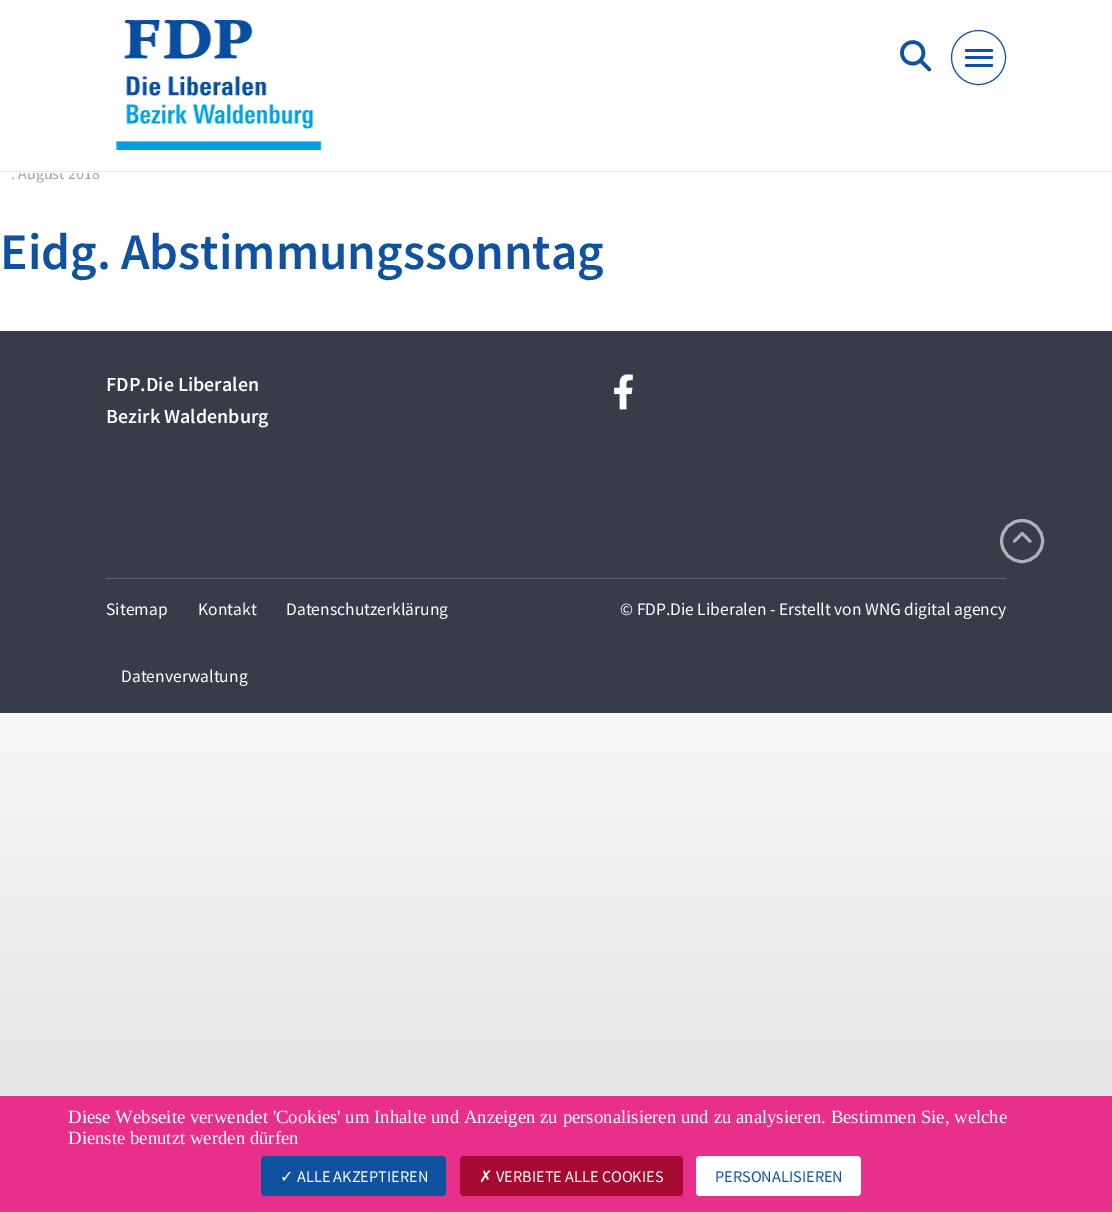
%!PS-Adobe-3.0
%%BoundingBox: 0 0 1112 1212
%%LanguageLevel: 3
%%Pages: 1
%%EndComments
%%BeginProlog
/setink { dup -16 bitshift 255 div exch dup -8 bitshift 255 and 255 div exch 255 and 255 div setrgbcolor } def
/usefont { [ exch dup neg 0 0 3 -1 roll 0 0 ] selectfont } def
/disc { newpath 0 360 arc closepath } def
/rrect { 5 dict begin { /r /h /w /y /x } { exch def } forall
  x r add y moveto x w add y 2 copy h add r arct x w add y h add x 1 index r arct
  x y h add x y r arct x y 2 copy exch w add exch r arct closepath end } def
/drawimage { 5 dict begin { /h /w /y /x /name } { exch def } forall
  gsave x y translate w h scale
  w h 8 [w 0 0 h 0 0] name (r) file false 3 colorimage grestore end } def
%%EndProlog
%%BeginSetup
<< /PageSize [1112 1212] >> setpagedevice
%%EndSetup
%%Page: 1 1
0 1212 translate 1 -1 scale
4 setmiterlimit
16#FFFFFF setink
0 0 1112 1212 rectfill
gsave 0 713 moveto 1112 713 lineto 1112 1096 lineto 0 1096 lineto closepath clip newpath
<< /ShadingType 2 /ColorSpace /DeviceRGB /Coords [556 713 556 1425] /Extend [true true] /Function << /FunctionType 2 /Domain [0 1] /C0 [0.973 0.973 0.973] /C1 [0.835 0.835 0.835] /N 1 >> >> shfill grestore
/SourceSansPro-Regular 16 usefont
16#A3A3A3 setink
11 179 moveto (. August 2018) show
16#FFFFFF setink
20 168 79 5 rectfill
16#E6E6E6 setink
0 171 1112 1 rectfill
(img1.raw) 116 20 206 130 drawimage
(img2.raw) 900 40 32 32 drawimage
16#0E52A0 setink
978.5 57.5 27 disc stroke
965 49 28 3 1.5 rrect fill
965 56 28 3 1.5 rrect fill
965 64 28 3 1.5 rrect fill
/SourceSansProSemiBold-SemiBold 51.25 usefont
0 269 moveto (Eidg. Abstimmungssonntag) show
16#373C48 setink
0 331 1112 382 rectfill
/SourceSansProSemiBold-SemiBold 20 usefont
16#FFFFFF setink
106 391 moveto (FDP.Die Liberalen) show
106 423 moveto (Bezirk Waldenburg) show
(img3.raw) 614 374 19 36 drawimage
16#AFB1B6 setink
3 setlinewidth
1022 541 20.5 disc stroke
(img4.raw) 1012 531 20 12 drawimage
16#5F636D setink
106 578 900 1 rectfill
/SourceSansPro-Regular 17.5 usefont
16#FFFFFF setink
[
    [(Sitemap) 106 615]
    [(Kontakt) 198 615]
    [(Datenschutzerklärung) 286 615]
    [(Datenverwaltung) 121 682]
    [(© FDP.Die Liberalen - Erstellt von WNG digital agency) 620 615]
] { aload pop moveto show } forall
16#E8308A setink
0 1096 1112 116 rectfill
/LiberationSerif-Regular 18.75 usefont
16#FFFFFF setink
68 1123 moveto (Diese Webseite verwendet 'Cookies' um Inhalte und Anzeigen zu personalisieren und zu analysieren. Bestimmen Sie, welche) show
68 1144 moveto (Dienste benutzt werden dürfen) show
16#0E52A0 setink
261 1156 185 40 4 rrect fill
/DejaVuSans-Regular 16.25 usefont
16#FFFFFF setink
280 1182 moveto (✓) show
/SourceSansPro-Regular 16.25 usefont
297 1182 moveto (ALLE AKZEPTIEREN) show
16#A60A33 setink
460 1156 223 40 4 rrect fill
/DejaVuSans-Regular 16.25 usefont
16#FFFFFF setink
479 1182 moveto (✗) show
/SourceSansPro-Regular 16.25 usefont
496 1182 moveto (VERBIETE ALLE COOKIES) show
696 1156 165 40 4 rrect fill
16#0E52A0 setink
715 1182 moveto (PERSONALISIEREN) show
showpage
%%EOF
